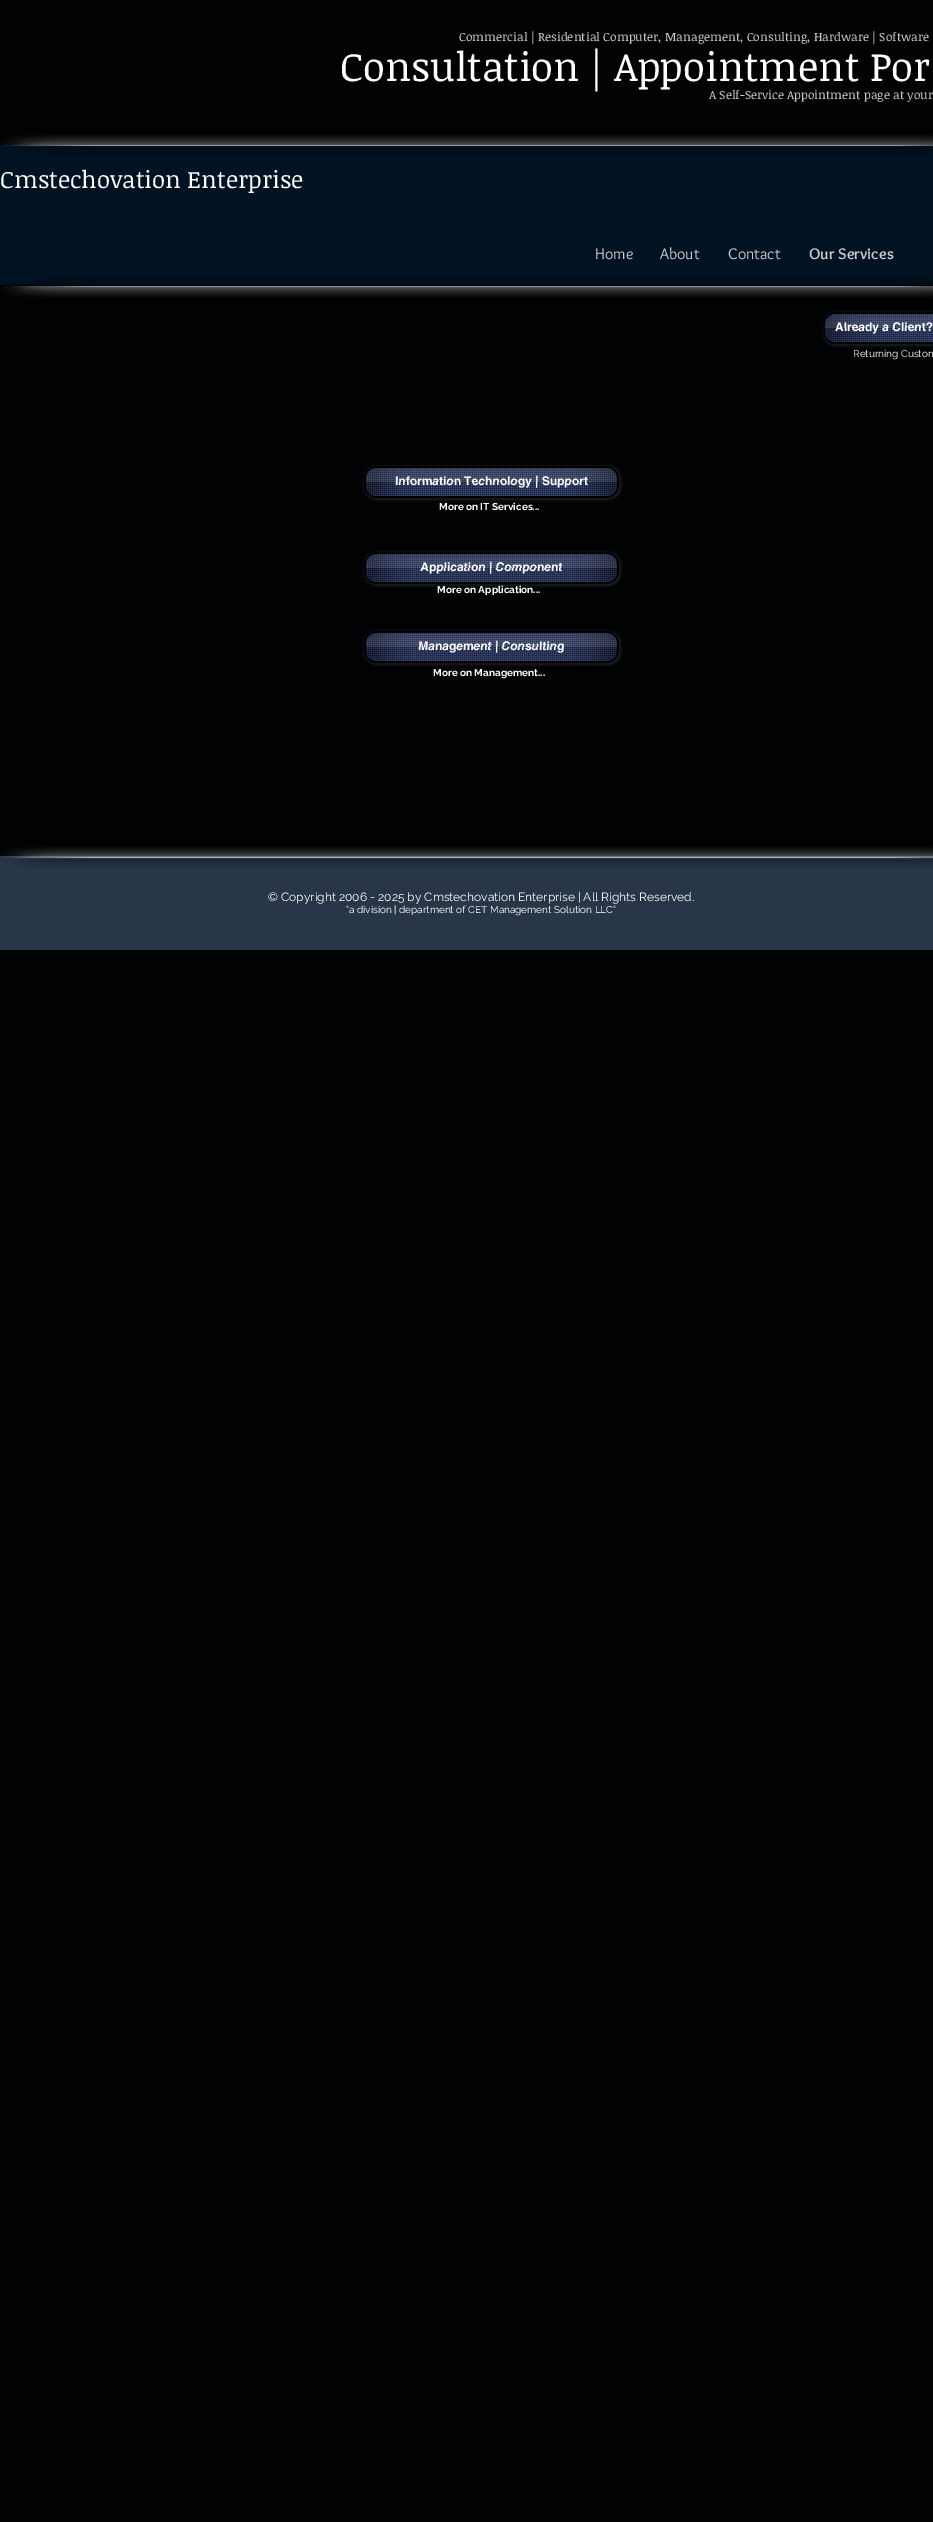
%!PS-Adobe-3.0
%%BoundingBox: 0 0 933 2522
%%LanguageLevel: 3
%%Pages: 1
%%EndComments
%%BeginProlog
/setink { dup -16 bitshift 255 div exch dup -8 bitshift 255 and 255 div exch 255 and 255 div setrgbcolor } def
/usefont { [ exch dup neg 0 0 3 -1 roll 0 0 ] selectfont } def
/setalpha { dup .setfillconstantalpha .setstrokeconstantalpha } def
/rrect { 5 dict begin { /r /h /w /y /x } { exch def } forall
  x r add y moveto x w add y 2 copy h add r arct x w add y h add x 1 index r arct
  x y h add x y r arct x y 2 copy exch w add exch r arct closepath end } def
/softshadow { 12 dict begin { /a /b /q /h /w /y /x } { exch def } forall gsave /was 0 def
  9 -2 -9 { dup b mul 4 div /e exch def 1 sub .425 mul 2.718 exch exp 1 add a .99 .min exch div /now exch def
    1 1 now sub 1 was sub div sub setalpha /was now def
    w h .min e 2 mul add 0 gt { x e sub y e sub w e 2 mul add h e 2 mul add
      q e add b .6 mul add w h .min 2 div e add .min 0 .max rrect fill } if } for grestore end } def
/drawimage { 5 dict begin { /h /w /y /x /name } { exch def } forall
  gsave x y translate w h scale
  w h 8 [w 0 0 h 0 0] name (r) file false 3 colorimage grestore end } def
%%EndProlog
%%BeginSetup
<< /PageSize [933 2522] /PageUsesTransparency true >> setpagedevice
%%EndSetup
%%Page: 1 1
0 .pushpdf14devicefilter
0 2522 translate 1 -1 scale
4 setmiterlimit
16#010203 setink
0 0 933 2522 rectfill
/NoticiaText-Regular 12 usefont
16#CCCCCC setink
459 41 moveto (Commercial | Residential Computer, Management, Consulting, Hardware | Software) show
/NoticiaText-Regular 40 usefont
16#FFFFFF setink
340 81 moveto (Consultation | Appointment Por) show
/NoticiaText-Regular 12 usefont
16#CCCCCC setink
709 99 moveto (A Self-Service Appointment page at your) show
16#011222 setink
0 145 933 140 rectfill
(img1.raw) 3 135 97 19 drawimage
(img2.raw) 100 135 780 19 drawimage
(img3.raw) 880 135 53 19 drawimage
/NoticiaText-Regular 24 usefont
16#FFFFFF setink
0 188 moveto (Cmstechovation Enterprise) show
/Overlock-Regular 16 usefont
16#CCCCCC setink
[
    [(Home) 595 259]
    [(About) 660 259]
    [(Contact) 728 259]
] { aload pop moveto show } forall
/Overlock-Bold 16 usefont
809 259 moveto (Our Services) show
(img4.raw) 3 278 97 19 drawimage
(img5.raw) 100 278 780 19 drawimage
(img6.raw) 880 278 53 19 drawimage
gsave
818 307 moveto 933 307 lineto 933 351 lineto 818 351 lineto closepath 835 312 moveto 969 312 lineto 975.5 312 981 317.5 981 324 curveto 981 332 lineto 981 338.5 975.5 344 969 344 curveto 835 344 lineto 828.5 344 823 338.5 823 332 curveto 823 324 lineto 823 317.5 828.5 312 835 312 curveto closepath eoclip newpath
16#FFFFFF setink
824 313 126 32 12 1.5 0.3 softshadow
grestore
gsave
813 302 moveto 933 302 lineto 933 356 lineto 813 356 lineto closepath 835 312 moveto 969 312 lineto 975.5 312 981 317.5 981 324 curveto 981 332 lineto 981 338.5 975.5 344 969 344 curveto 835 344 lineto 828.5 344 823 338.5 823 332 curveto 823 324 lineto 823 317.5 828.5 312 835 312 curveto closepath eoclip newpath
16#000000 setink
823 312 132 34 13 3 0.6 softshadow
grestore
0.75 setalpha
16#5164A6 setink
823 312 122 32 12 rrect fill
1 setalpha
(img7.raw) 823 312 110 32 drawimage
16#000000 setink
2 setlinewidth
824 313 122 30 11 rrect stroke
(img8.raw) 825 314 44 28 drawimage
/helvetica-Bold 12 usefont
16#FFFFFF setink
835 331 moveto (Already a Client?) show
(img9.raw) 825 314 108 14 drawimage
/Raleway-Regular 10 usefont
853 357 moveto (Returning Custom) show
gsave
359 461 moveto 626 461 lineto 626 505 lineto 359 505 lineto closepath 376 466 moveto 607 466 lineto 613.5 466 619 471.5 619 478 curveto 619 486 lineto 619 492.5 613.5 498 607 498 curveto 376 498 lineto 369.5 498 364 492.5 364 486 curveto 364 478 lineto 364 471.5 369.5 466 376 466 curveto closepath eoclip newpath
365 467 255 32 12 1.5 0.3 softshadow
grestore
gsave
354 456 moveto 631 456 lineto 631 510 lineto 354 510 lineto closepath 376 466 moveto 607 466 lineto 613.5 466 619 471.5 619 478 curveto 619 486 lineto 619 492.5 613.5 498 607 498 curveto 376 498 lineto 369.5 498 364 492.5 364 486 curveto 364 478 lineto 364 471.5 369.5 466 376 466 curveto closepath eoclip newpath
16#000000 setink
364 466 257 34 13 3 0.6 softshadow
grestore
0.75 setalpha
16#5164A6 setink
364 466 255 32 12 rrect fill
1 setalpha
(img10.raw) 364 466 255 32 drawimage
16#000000 setink
365 467 253 30 11 rrect stroke
(img8.raw) 366 468 44 28 drawimage
(img12.raw) 573 468 44 28 drawimage
/helvetica-Bold 12 usefont
16#FFFFFF setink
395 485 moveto (Information Technology | Support) show
(img11.raw) 366 468 251 14 drawimage
/Raleway-Bold 10 usefont
439 510 moveto (More on IT Services...) show
gsave
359 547 moveto 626 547 lineto 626 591 lineto 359 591 lineto closepath 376 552 moveto 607 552 lineto 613.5 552 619 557.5 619 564 curveto 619 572 lineto 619 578.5 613.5 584 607 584 curveto 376 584 lineto 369.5 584 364 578.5 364 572 curveto 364 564 lineto 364 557.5 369.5 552 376 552 curveto closepath eoclip newpath
365 553 255 32 12 1.5 0.3 softshadow
grestore
gsave
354 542 moveto 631 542 lineto 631 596 lineto 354 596 lineto closepath 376 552 moveto 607 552 lineto 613.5 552 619 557.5 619 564 curveto 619 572 lineto 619 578.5 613.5 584 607 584 curveto 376 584 lineto 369.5 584 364 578.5 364 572 curveto 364 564 lineto 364 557.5 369.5 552 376 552 curveto closepath eoclip newpath
16#000000 setink
364 552 257 34 13 3 0.6 softshadow
grestore
0.75 setalpha
16#5164A6 setink
364 552 255 32 12 rrect fill
1 setalpha
(img10.raw) 364 552 255 32 drawimage
16#000000 setink
365 553 253 30 11 rrect stroke
(img8.raw) 366 554 44 28 drawimage
/helvetica-Bold 12 usefont
16#FFFFFF setink
420 571 moveto (Application | Component) show
(img12.raw) 573 554 44 28 drawimage
(img13.raw) 366 554 251 14 drawimage
/Raleway-Bold 10 usefont
437 593 moveto (More on Application...) show
gsave
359 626 moveto 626 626 lineto 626 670 lineto 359 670 lineto closepath 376 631 moveto 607 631 lineto 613.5 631 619 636.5 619 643 curveto 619 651 lineto 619 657.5 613.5 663 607 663 curveto 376 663 lineto 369.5 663 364 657.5 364 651 curveto 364 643 lineto 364 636.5 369.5 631 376 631 curveto closepath eoclip newpath
365 632 255 32 12 1.5 0.3 softshadow
grestore
gsave
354 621 moveto 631 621 lineto 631 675 lineto 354 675 lineto closepath 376 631 moveto 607 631 lineto 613.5 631 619 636.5 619 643 curveto 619 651 lineto 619 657.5 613.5 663 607 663 curveto 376 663 lineto 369.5 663 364 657.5 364 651 curveto 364 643 lineto 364 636.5 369.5 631 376 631 curveto closepath eoclip newpath
16#000000 setink
364 631 257 34 13 3 0.6 softshadow
grestore
0.75 setalpha
16#5164A6 setink
364 631 255 32 12 rrect fill
1 setalpha
(img10.raw) 364 631 255 32 drawimage
16#000000 setink
365 632 253 30 11 rrect stroke
(img8.raw) 366 633 44 28 drawimage
/helvetica-Bold 12 usefont
16#FFFFFF setink
418 650 moveto (Management | Consulting) show
(img12.raw) 573 633 44 28 drawimage
(img14.raw) 366 633 251 14 drawimage
/Raleway-Bold 10 usefont
433 676 moveto (More on Management...) show
16#293649 setink
0 856 933 94 rectfill
(img15.raw) 3 847 97 21 drawimage
(img16.raw) 100 847 780 21 drawimage
(img17.raw) 880 847 53 21 drawimage
/Raleway-Regular 12 usefont
16#FFFFFF setink
268 901 moveto (© Copyright 2006 - 2025 by Cmstechovation Enterprise | All Rights Reserved.) show
/Raleway-Regular 10 usefont
346 913 moveto ("a division | department of CET Management Solution LLC") show
.poppdf14devicefilter showpage
%%EOF
